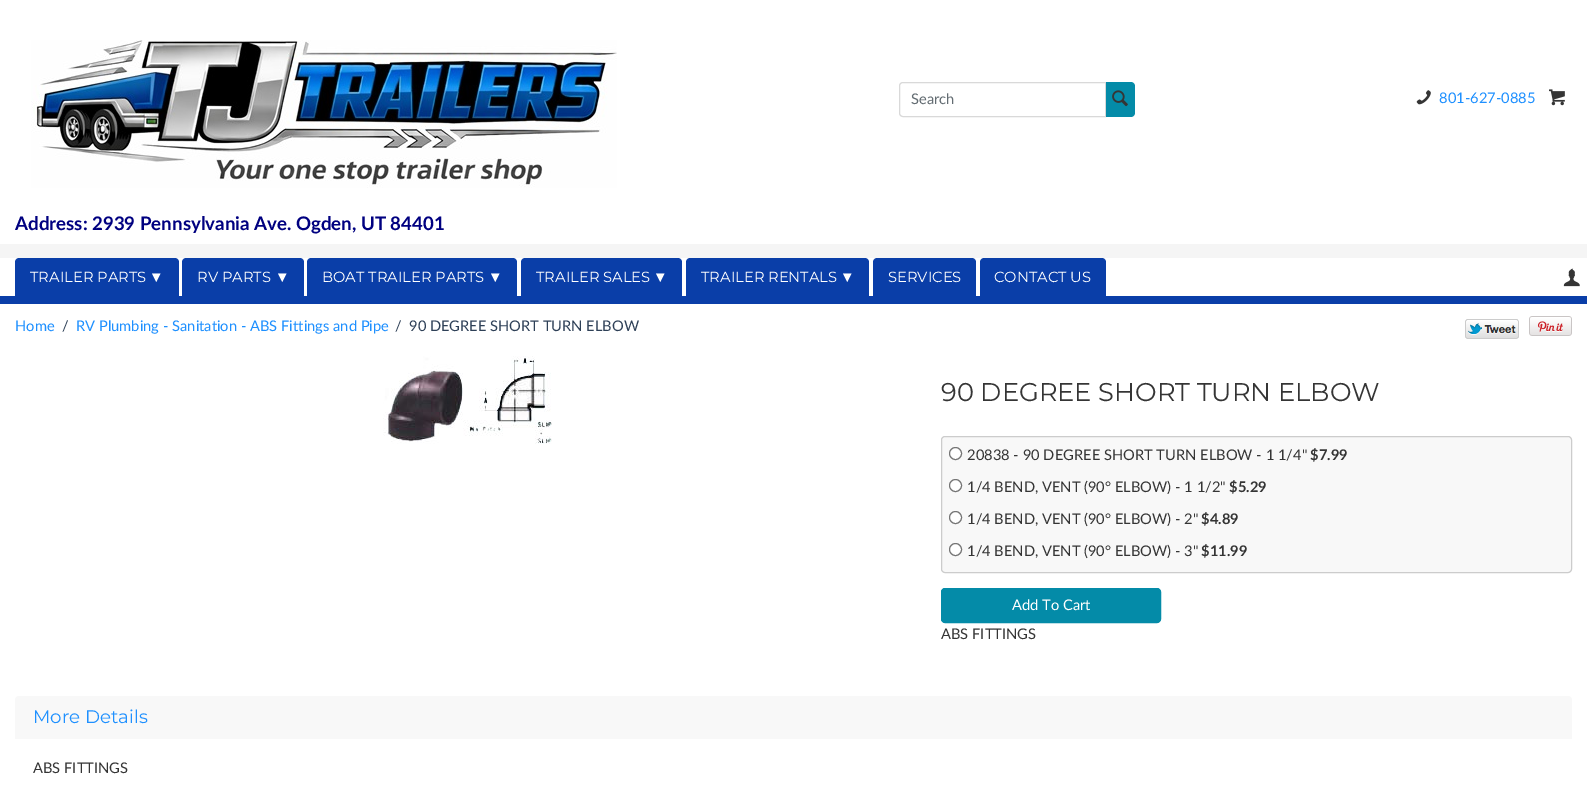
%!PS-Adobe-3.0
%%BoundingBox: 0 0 1587 809
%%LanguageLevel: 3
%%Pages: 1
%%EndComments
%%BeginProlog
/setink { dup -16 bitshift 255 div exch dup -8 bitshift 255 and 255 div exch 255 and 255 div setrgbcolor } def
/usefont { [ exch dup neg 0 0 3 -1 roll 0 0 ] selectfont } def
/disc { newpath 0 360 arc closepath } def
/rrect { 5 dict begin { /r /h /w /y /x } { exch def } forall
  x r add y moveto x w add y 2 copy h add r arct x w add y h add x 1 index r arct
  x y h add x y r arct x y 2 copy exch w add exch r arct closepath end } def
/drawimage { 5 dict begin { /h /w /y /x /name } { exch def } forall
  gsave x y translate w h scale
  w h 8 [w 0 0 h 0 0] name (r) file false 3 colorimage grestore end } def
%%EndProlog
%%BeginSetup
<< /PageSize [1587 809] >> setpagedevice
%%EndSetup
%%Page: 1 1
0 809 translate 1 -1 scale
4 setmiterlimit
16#F5F5F5 setink
0 0 1587 809 rectfill
16#FFFFFF setink
0 0 1587 244 rectfill
(img1.raw) 31 40 586 148 drawimage
16#D9D9D9 setink
903 82.5 moveto 1105.5 82.5 lineto 1105.5 116.5 lineto 903 116.5 lineto 901 116.5 899.5 115 899.5 113 curveto 899.5 86 lineto 899.5 84 901 82.5 903 82.5 curveto closepath stroke
/Lato-Regular 14.7 usefont
16#636C72 setink
911 104 moveto (Search) show
16#048BA8 setink
1106 82 moveto 1131 82 lineto 1133 82 1135 84 1135 86 curveto 1135 113 lineto 1135 115 1133 117 1131 117 curveto 1106 117 lineto closepath fill
(img2.raw) 1112 90 16 17 drawimage
(img3.raw) 1416 90 15 15 drawimage
16#1E90FF setink
1439 103 moveto (801-627-0885) show
(img4.raw) 1549 89 16 17 drawimage
/Lato-Bold 18.7 usefont
16#000080 setink
15 230 moveto (Address: 2939 Pennsylvania Ave. Ogden, UT 84401) show
16#FFFFFF setink
0 258 1587 38 rectfill
16#0A3EA8 setink
19 258 moveto 175 258 lineto 177 258 179 260 179 262 curveto 179 296 lineto 15 296 lineto 15 262 lineto 15 260 17 258 19 258 curveto closepath fill
/Montserrat-Regular 14.7 usefont
16#FFFFFF setink
30 282 moveto (TRAILER PARTS) show
/LiberationSans-Regular 14.7 usefont
149 282 moveto (▼) show
16#0A3EA8 setink
186 258 moveto 300 258 lineto 302 258 304 260 304 262 curveto 304 296 lineto 182 296 lineto 182 262 lineto 182 260 184 258 186 258 curveto closepath fill
/Montserrat-Regular 14.7 usefont
16#FFFFFF setink
197 282 moveto (RV PARTS) show
/LiberationSans-Regular 14.7 usefont
275 282 moveto (▼) show
16#0A3EA8 setink
311 258 moveto 513 258 lineto 515 258 517 260 517 262 curveto 517 296 lineto 307 296 lineto 307 262 lineto 307 260 309 258 311 258 curveto closepath fill
/Montserrat-Regular 14.7 usefont
16#FFFFFF setink
322 282 moveto (BOAT TRAILER PARTS) show
/LiberationSans-Regular 14.7 usefont
488 282 moveto (▼) show
16#0A3EA8 setink
525 258 moveto 678 258 lineto 680 258 682 260 682 262 curveto 682 296 lineto 521 296 lineto 521 262 lineto 521 260 523 258 525 258 curveto closepath fill
/Montserrat-Regular 14.7 usefont
16#FFFFFF setink
536 282 moveto (TRAILER SALES) show
/LiberationSans-Regular 14.7 usefont
653 282 moveto (▼) show
16#0A3EA8 setink
690 258 moveto 865 258 lineto 867 258 869 260 869 262 curveto 869 296 lineto 686 296 lineto 686 262 lineto 686 260 688 258 690 258 curveto closepath fill
/Montserrat-Regular 14.7 usefont
16#FFFFFF setink
701 282 moveto (TRAILER RENTALS) show
/LiberationSans-Regular 14.7 usefont
840 282 moveto (▼) show
16#0A3EA8 setink
877 258 moveto 972 258 lineto 974 258 976 260 976 262 curveto 976 296 lineto 873 296 lineto 873 262 lineto 873 260 875 258 877 258 curveto closepath fill
/Montserrat-Regular 14.7 usefont
16#FFFFFF setink
888 282 moveto (SERVICES) show
16#0A3EA8 setink
984 258 moveto 1102 258 lineto 1104 258 1106 260 1106 262 curveto 1106 296 lineto 980 296 lineto 980 262 lineto 980 260 982 258 984 258 curveto closepath fill
16#FFFFFF setink
994 282 moveto (CONTACT US) show
(img5.raw) 1563 268 17 19 drawimage
16#0A3EA8 setink
0 296 1587 8 rectfill
16#FFFFFF setink
0 304 1587 505 rectfill
/Lato-Regular 14.7 usefont
16#1E90FF setink
15 331 moveto (Home) show
16#2E4057 setink
62 331 moveto (/) show
16#1E90FF setink
76 331 moveto (RV Plumbing - Sanitation - ABS Fittings and Pipe) show
16#2E4057 setink
395 331 moveto (/) show
409 331 moveto (90 DEGREE SHORT TURN ELBOW) show
(img6.raw) 1465 319 54 20 drawimage
(img7.raw) 1529 316 43 20 drawimage
(img8.raw) 383 356 169 88 drawimage
/Montserrat-Regular 25.7 usefont
16#353535 setink
941 401 moveto (90 DEGREE SHORT TURN ELBOW) show
16#F8F8F8 setink
941.5 436.5 630 136 3.5 rrect gsave fill grestore
16#CCCCCC setink
stroke
16#FFFFFF setink
955.5 453.5 6 disc gsave fill grestore
16#767676 setink
stroke
/Lato-Regular 14.7 usefont
16#353535 setink
967 460 moveto (20838 - 90 DEGREE SHORT TURN ELBOW - 1 1/4") show
/Lato-Bold 14.7 usefont
1310 460 moveto ($7.99) show
16#FFFFFF setink
955.5 485.5 6 disc gsave fill grestore
16#767676 setink
stroke
/Lato-Regular 14.7 usefont
16#353535 setink
967 492 moveto (1/4 BEND, VENT \(90° ELBOW\) - 1 1/2") show
/Lato-Bold 14.7 usefont
1229 492 moveto ($5.29) show
16#FFFFFF setink
955.5 517.5 6 disc gsave fill grestore
16#767676 setink
stroke
/Lato-Regular 14.7 usefont
16#353535 setink
967 524 moveto (1/4 BEND, VENT \(90° ELBOW\) - 2") show
/Lato-Bold 14.7 usefont
1201 524 moveto ($4.89) show
16#FFFFFF setink
955.5 549.5 6 disc gsave fill grestore
16#767676 setink
stroke
/Lato-Regular 14.7 usefont
16#353535 setink
967 556 moveto (1/4 BEND, VENT \(90° ELBOW\) - 3") show
/Lato-Bold 14.7 usefont
1201 556 moveto ($11.99) show
16#048BA8 setink
941.5 588.5 219 34 3.5 rrect gsave fill grestore
stroke
/Lato-Regular 14.7 usefont
16#FFFFFF setink
1012 610 moveto (Add To Cart) show
16#353535 setink
941 639 moveto (ABS FITTINGS) show
16#F8F8F8 setink
19 696 moveto 1568 696 lineto 1570 696 1572 698 1572 700 curveto 1572 739 lineto 15 739 lineto 15 700 lineto 15 698 17 696 19 696 curveto closepath fill
/Montserrat-Regular 18.25 usefont
16#1E90FF setink
33 723 moveto (More Details) show
/Lato-Regular 14.7 usefont
16#353535 setink
33 773 moveto (ABS FITTINGS) show
showpage
%%EOF
